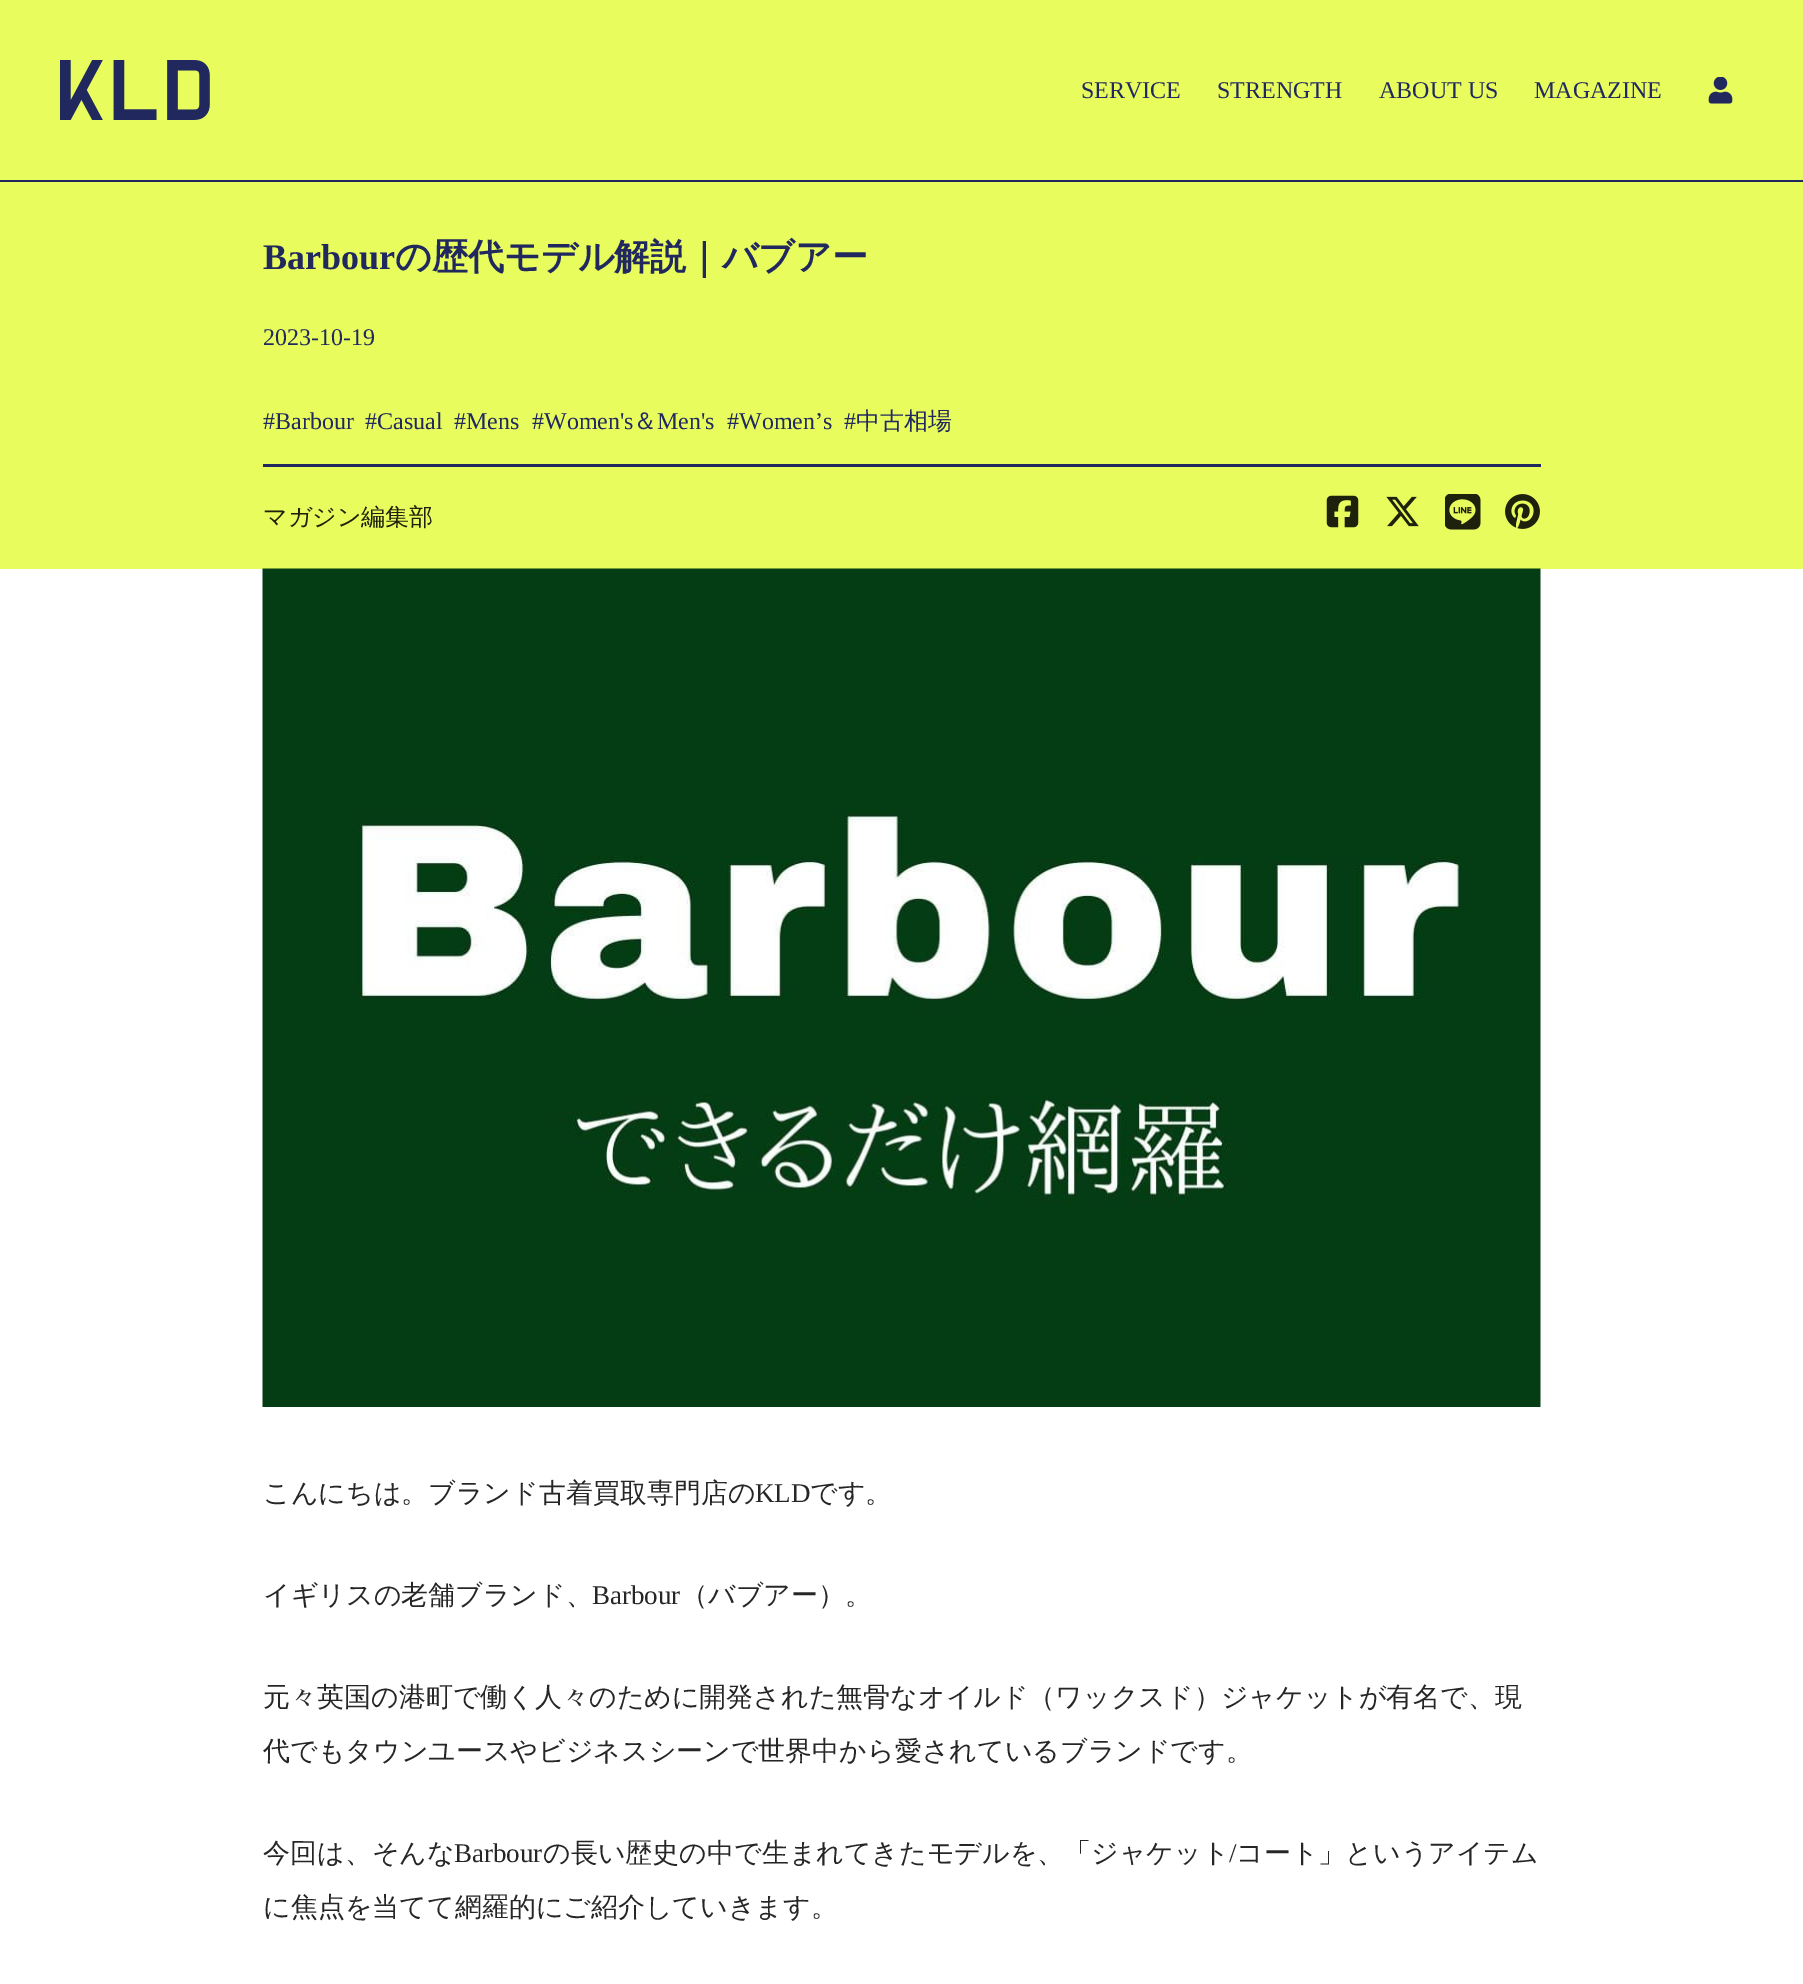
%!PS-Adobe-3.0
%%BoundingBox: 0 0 1803 1984
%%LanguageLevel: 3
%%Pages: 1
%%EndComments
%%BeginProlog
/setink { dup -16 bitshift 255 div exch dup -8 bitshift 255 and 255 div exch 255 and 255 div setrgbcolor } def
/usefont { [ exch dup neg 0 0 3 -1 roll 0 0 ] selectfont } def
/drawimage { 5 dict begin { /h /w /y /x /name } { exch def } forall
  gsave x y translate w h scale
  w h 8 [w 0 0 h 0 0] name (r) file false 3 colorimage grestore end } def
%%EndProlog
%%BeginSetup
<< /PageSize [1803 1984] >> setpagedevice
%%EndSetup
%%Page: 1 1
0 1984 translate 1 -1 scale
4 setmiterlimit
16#FFFFFF setink
0 0 1803 1984 rectfill
16#E8FC5E setink
0 0 1803 180 rectfill
(img1.raw) 60 60 150 60 drawimage
/LiberationSerif-Regular 24 usefont
16#20285E setink
[
    [(SERVICE) 1081 98]
    [(STRENGTH) 1217 98]
    [(ABOUT US) 1379 98]
    [(MAGAZINE) 1534 98]
] { aload pop moveto show } forall
(img2.raw) 1708 77 25 27 drawimage
0 180 1803 2 rectfill
16#E8FC5E setink
0 182 1803 387 rectfill
/LiberationSerif-Bold 36 usefont
16#20285E setink
263 269 moveto (Barbour) show
/WenQuanYiZenHei-Bold 36 usefont
395 269 moveto (の歴代モデル解説｜バブアー) show
/LiberationSerif-Regular 24 usefont
[
    [(2023-10-19) 263 345]
    [(#Barbour) 263 429]
    [(#Casual) 365 429]
    [(#Mens) 454 429]
    [(#Women's) 532 429]
] { aload pop moveto show } forall
/WenQuanYiZenHei-Medium 24 usefont
633 429 moveto (＆) show
/LiberationSerif-Regular 24 usefont
[
    [(Men's) 657 429]
    [(#Women’s) 727 429]
    [(#) 844 429]
] { aload pop moveto show } forall
/WenQuanYiZenHei-Medium 24 usefont
856 429 moveto (中古相場) show
263 464 1278 3 rectfill
16#1E210C setink
263 525 moveto (マガジン編集部) show
(img3.raw) 1326 495 33 33 drawimage
(img4.raw) 1386 496 33 31 drawimage
(img5.raw) 1445 494 36 36 drawimage
(img6.raw) 1505 494 35 35 drawimage
(img7.raw) 262 568 1279 839 drawimage
/WenQuanYiZenHei-Medium 27 usefont
16#262626 setink
263 1502 moveto (こんにちは。ブランド古着買取専門店の) show
/LiberationSerif-Regular 27 usefont
755 1502 moveto (KLD) show
/WenQuanYiZenHei-Medium 27 usefont
810 1502 moveto (です。) show
263 1604 moveto (イギリスの老舗ブランド、) show
/LiberationSerif-Regular 27 usefont
592 1604 moveto (Barbour) show
/WenQuanYiZenHei-Medium 27 usefont
[
    [(（バブアー）。) 681 1604]
    [(元々英国の港町で働く人々のために開発された無骨なオイルド（ワックスド）ジャケットが有名で、現) 263 1706]
    [(代でもタウンユースやビジネスシーンで世界中から愛されているブランドです。) 263 1760]
    [(今回は、そんな) 263 1862]
] { aload pop moveto show } forall
/LiberationSerif-Regular 27 usefont
454 1862 moveto (Barbour) show
/WenQuanYiZenHei-Medium 27 usefont
543 1862 moveto (の長い歴史の中で生まれてきたモデルを、「ジャケット) show
/LiberationSerif-Regular 27 usefont
1229 1862 moveto (/) show
/WenQuanYiZenHei-Medium 27 usefont
1236 1862 moveto (コート」というアイテム) show
263 1916 moveto (に焦点を当てて網羅的にご紹介していきます。) show
showpage
%%EOF
